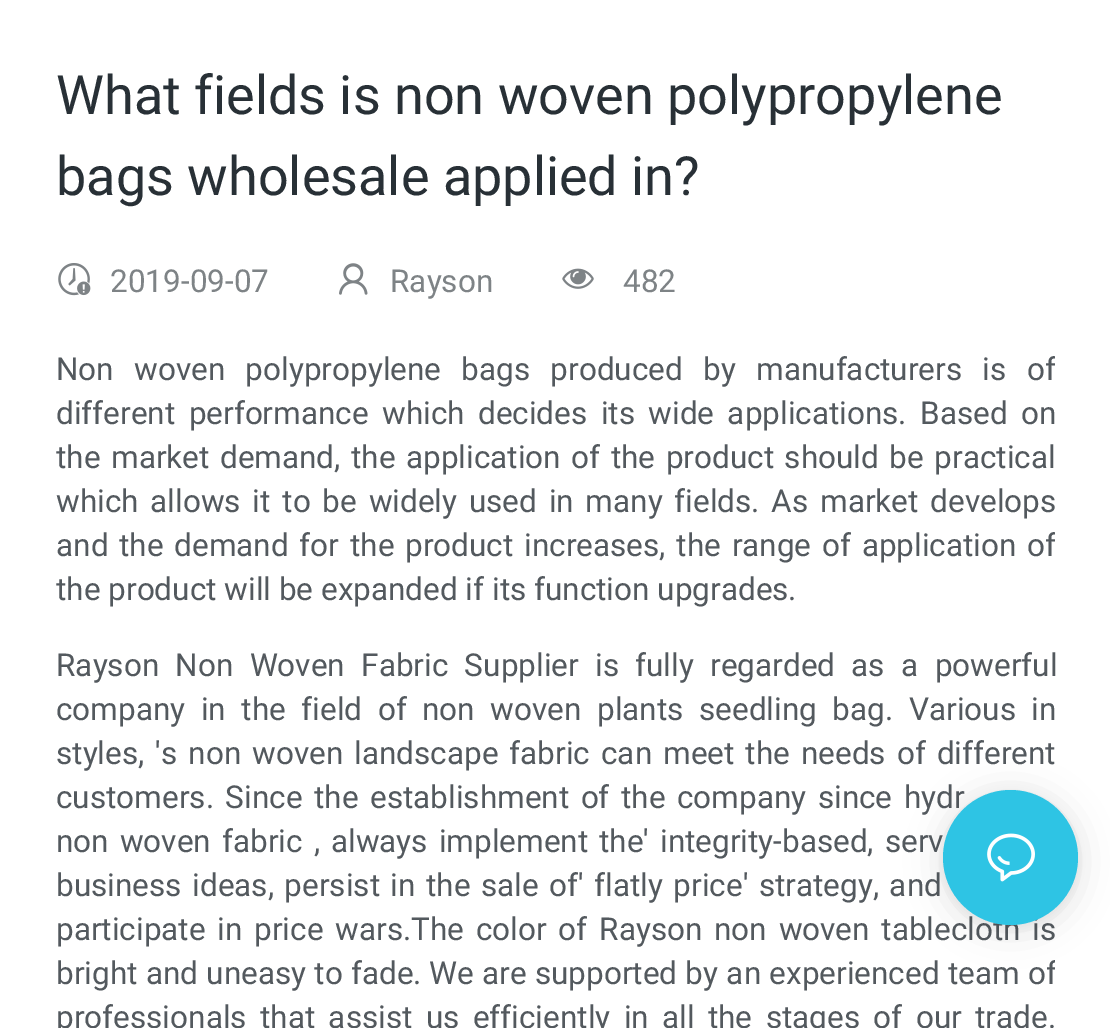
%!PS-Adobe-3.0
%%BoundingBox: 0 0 1110 1028
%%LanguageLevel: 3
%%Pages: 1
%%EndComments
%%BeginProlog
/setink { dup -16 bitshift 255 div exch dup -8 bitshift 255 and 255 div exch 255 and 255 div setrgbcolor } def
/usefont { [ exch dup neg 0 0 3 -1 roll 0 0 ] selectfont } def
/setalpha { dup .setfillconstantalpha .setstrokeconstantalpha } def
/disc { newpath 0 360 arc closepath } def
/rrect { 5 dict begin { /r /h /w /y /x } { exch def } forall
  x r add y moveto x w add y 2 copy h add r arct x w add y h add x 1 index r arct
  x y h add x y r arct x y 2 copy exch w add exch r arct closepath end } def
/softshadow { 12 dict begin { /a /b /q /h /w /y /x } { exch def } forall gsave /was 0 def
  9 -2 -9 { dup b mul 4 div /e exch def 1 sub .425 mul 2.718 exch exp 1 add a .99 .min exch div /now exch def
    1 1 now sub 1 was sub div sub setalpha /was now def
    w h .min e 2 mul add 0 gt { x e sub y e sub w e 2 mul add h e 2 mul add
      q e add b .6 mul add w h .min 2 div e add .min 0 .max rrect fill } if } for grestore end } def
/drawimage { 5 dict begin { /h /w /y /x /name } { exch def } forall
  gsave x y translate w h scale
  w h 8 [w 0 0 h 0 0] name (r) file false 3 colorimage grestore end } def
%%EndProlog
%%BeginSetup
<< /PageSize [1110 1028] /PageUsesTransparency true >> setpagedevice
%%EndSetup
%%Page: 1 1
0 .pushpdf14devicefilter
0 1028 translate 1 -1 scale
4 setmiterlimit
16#FFFFFF setink
0 0 1110 1028 rectfill
/Roboto-Regular 54 usefont
16#283036 setink
56 114 moveto (What fields is non woven polypropylene) show
56 195 moveto (bags wholesale applied in?) show
(img1.raw) 58 263 33 33 drawimage
/Roboto-Regular 31.5 usefont
16#7E8386 setink
110 292 moveto (2019-09-07) show
(img2.raw) 339 263 29 32 drawimage
390 292 moveto (Rayson) show
(img3.raw) 562 268 32 21 drawimage
623 292 moveto (482) show
gsave
56 317 999 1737 rectclip
16#53595E setink
56 380 moveto 12.5 0 32 (Non woven polypropylene bags produced by manufacturers is of) widthshow
grestore
16#53595E setink
56 424 moveto 5.6 0 32 (different performance which decides its wide applications. Based on) widthshow
gsave
56 317 999 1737 rectclip
56 468 moveto 2.75 0 32 (the market demand, the application of the product should be practical) widthshow
grestore
56 512 moveto 4 0 32 (which allows it to be widely used in many fields. As market develops) widthshow
gsave
56 317 999 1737 rectclip
56 556 moveto 3 0 32 (and the demand for the product increases, the range of application of) widthshow
56 600 moveto (the product will be expanded if its function upgrades.) show
grestore
56 676 moveto 8.5 0 32 (Rayson Non Woven Fabric Supplier is fully regarded as a powerful) widthshow
56 720 moveto 7.75 0 32 (company in the field of non woven plants seedling bag. Various in) widthshow
56 764 moveto 3.25 0 32 (styles, 's non woven landscape fabric can meet the needs of different) widthshow
56 808 moveto 3.75 0 32 (customers. Since the establishment of the company since hydr) widthshow
56 852 moveto 3.25 0 32 (non woven fabric , always implement the' integrity-based, serv) widthshow
56 896 moveto 2.75 0 32 (business ideas, persist in the sale of' flatly price' strategy, and) widthshow
56 940 moveto 4 0 32 (participate in price wars.The color of Rayson non woven tablecloth is) widthshow
56 984 moveto 0.5 0 32 (bright and uneasy to fade.) widthshow
gsave
56 317 999 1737 rectclip
429 984 moveto 0.5 0 32 (We are supported by an experienced team of) widthshow
grestore
56 1028 moveto 5.6 0 32 (professionals that assist us efficiently in all the stages of our trade.) widthshow
16#000000 setink
943 794 135 135 67.5 18 0.12 softshadow
943 792 135 135 67.5 4.5 0.06 softshadow
16#2EC4E4 setink
1010.5 857.5 67.5 disc fill
(img4.raw) 987 833 48 49 drawimage
.poppdf14devicefilter showpage
%%EOF
